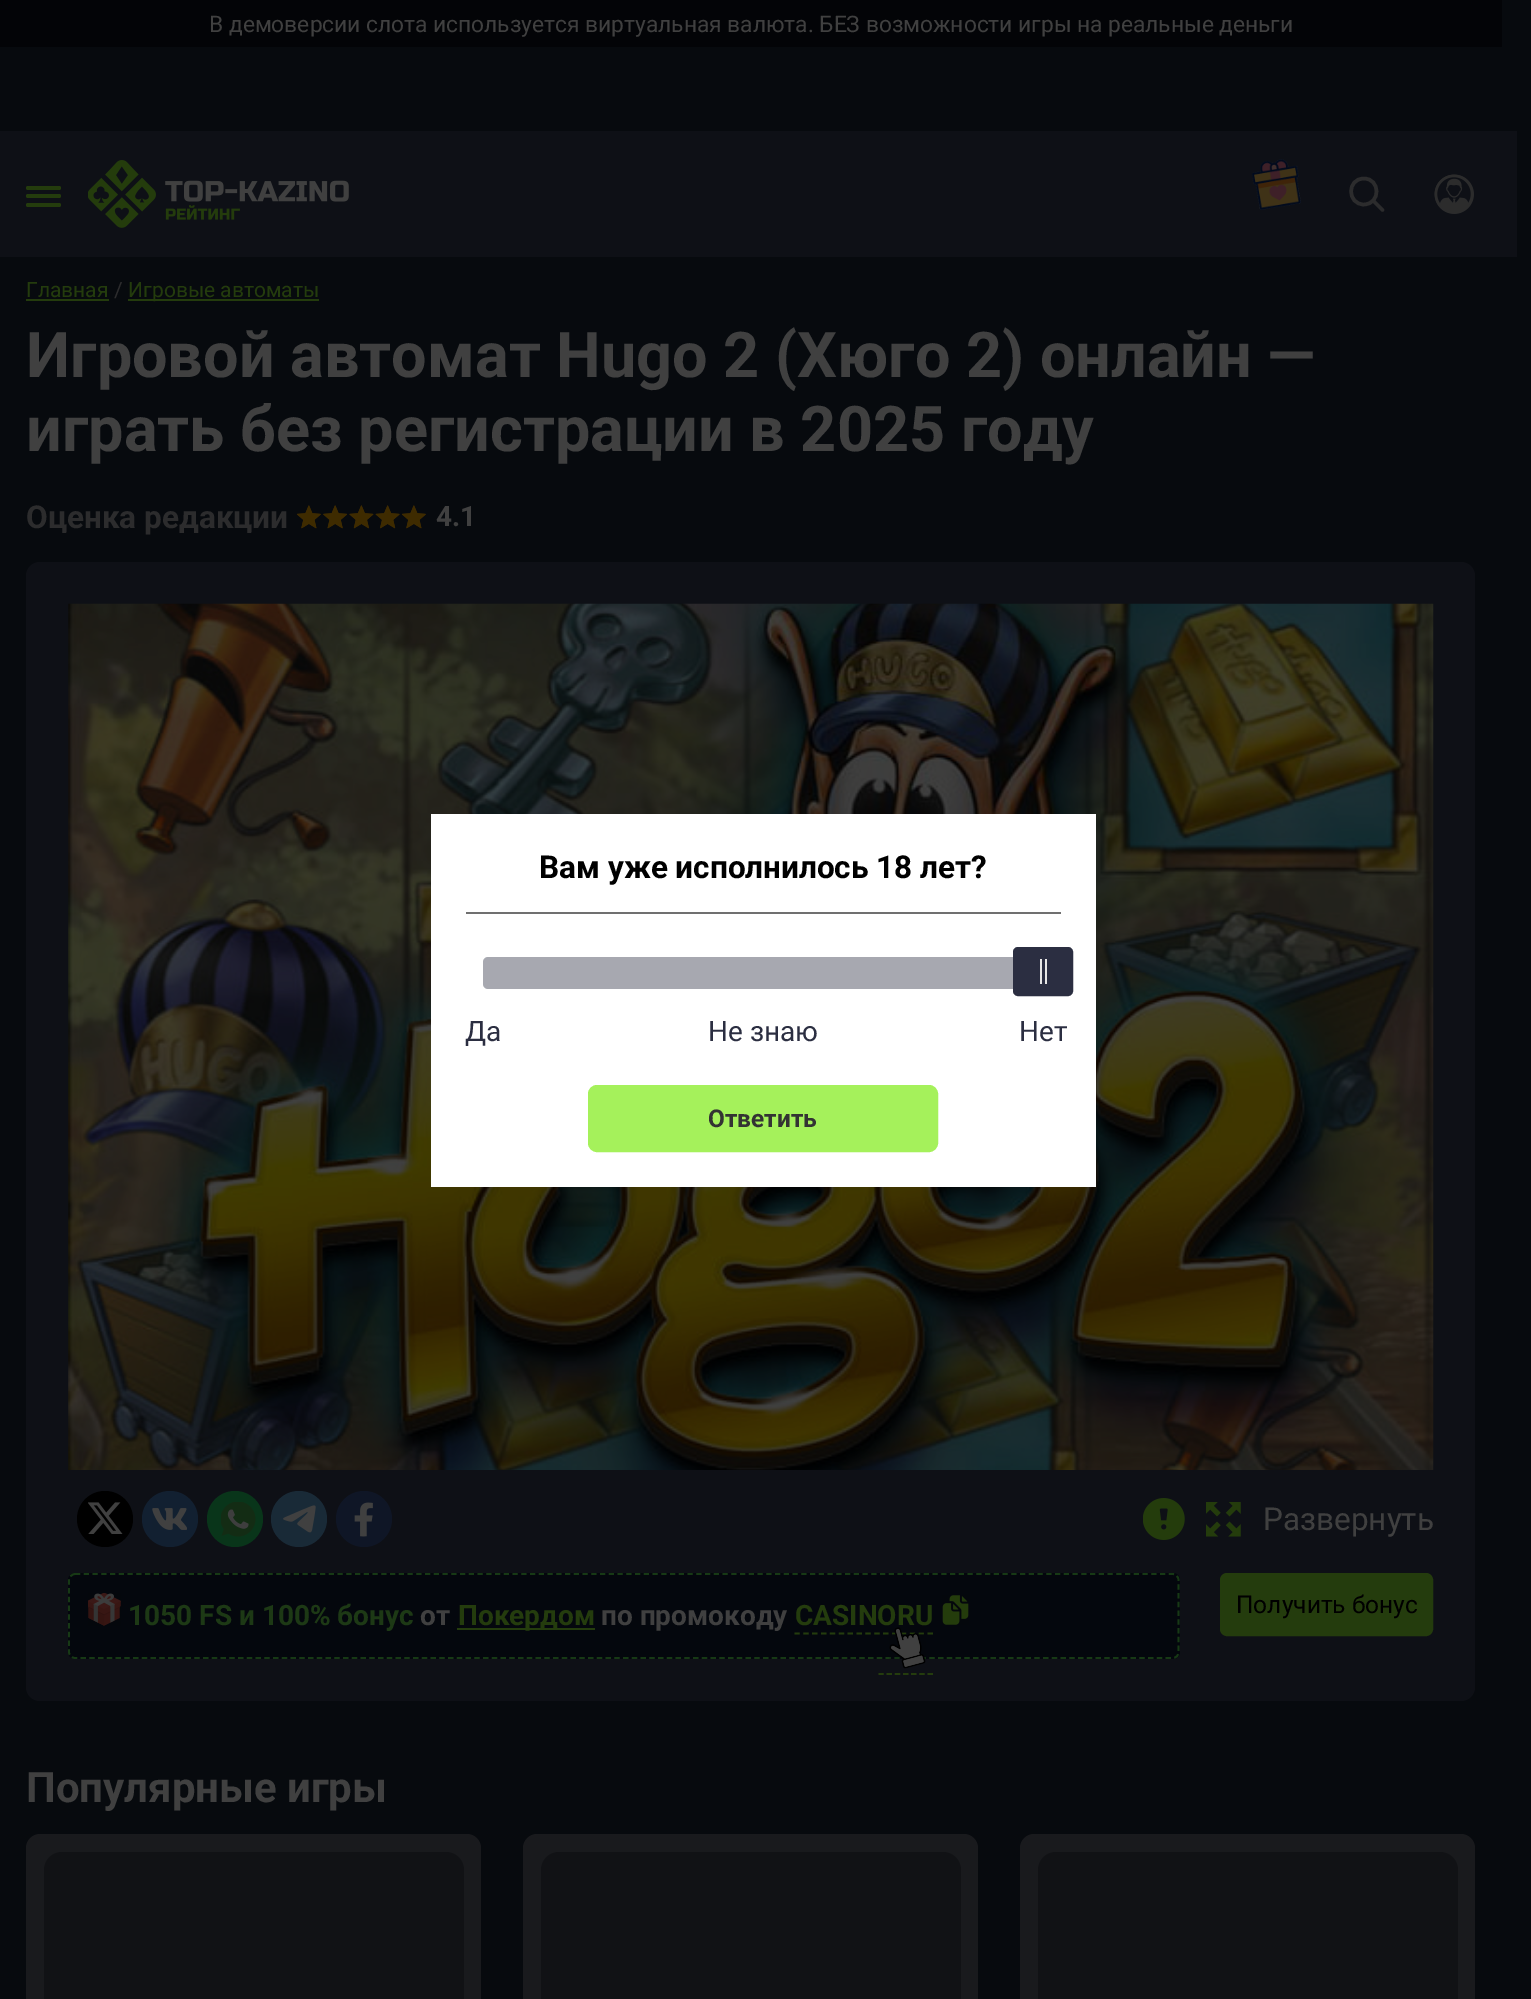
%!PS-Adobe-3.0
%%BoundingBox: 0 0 1531 1999
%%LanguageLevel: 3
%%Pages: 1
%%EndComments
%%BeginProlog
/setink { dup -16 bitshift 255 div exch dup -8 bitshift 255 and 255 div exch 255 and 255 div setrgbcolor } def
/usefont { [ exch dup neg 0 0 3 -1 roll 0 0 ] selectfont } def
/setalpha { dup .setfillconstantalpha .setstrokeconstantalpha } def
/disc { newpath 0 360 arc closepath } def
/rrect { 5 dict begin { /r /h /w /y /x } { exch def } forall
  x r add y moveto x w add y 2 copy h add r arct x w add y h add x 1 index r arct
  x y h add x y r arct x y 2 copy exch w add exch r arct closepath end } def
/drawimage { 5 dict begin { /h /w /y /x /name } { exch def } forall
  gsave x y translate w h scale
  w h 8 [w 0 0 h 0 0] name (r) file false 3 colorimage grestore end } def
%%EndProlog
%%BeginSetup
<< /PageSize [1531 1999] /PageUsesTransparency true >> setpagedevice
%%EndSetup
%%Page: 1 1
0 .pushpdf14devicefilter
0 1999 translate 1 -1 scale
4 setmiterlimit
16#070A0E setink
0 0 1531 1999 rectfill
16#030407 setink
0 0 1502 47 rectfill
/Roboto-Regular 22.75 usefont
16#404040 setink
209 32 moveto (В демоверсии слота используется виртуальная валюта. БЕЗ возможности игры на реальные деньги) show
16#0E1016 setink
0 131 1517 126 rectfill
16#243C0D setink
26 194 35 4 2 rrect fill
26 186 35 4 2 rrect fill
26 203 35 4 2 rrect fill
(img1.raw) 88 160 261 68 drawimage
(img2.raw) 1251 159 50 51 drawimage
16#2C2C2D setink
3.5 setlinewidth
1364 178.5 moveto 1346.5 178.5 1347 204.5 1364 204.5 curveto 1381 204 1380.5 178.5 1364 178.5 curveto closepath stroke
1 setlinecap
1373.5 201 moveto 1382.5 210 lineto stroke
(img3.raw) 1434 174 40 40 drawimage
/Roboto-Regular 21 usefont
16#243C0D setink
26 297 moveto (Главная) show
26 299 83 2 rectfill
16#2C2C2D setink
114 297 moveto (/) show
16#243C0D setink
128 299 191 2 rectfill
128 297 moveto (Игровые автоматы) show
/Roboto-Bold 63 usefont
16#404040 setink
26 377 moveto (Игровой автомат Hugo 2 \(Хюго 2\) онлайн —) show
26 451 moveto (играть без регистрации в 2025 году) show
/Roboto-Bold 31.5 usefont
16#2C2C2D setink
26 528 moveto (Оценка редакции) show
(img4.raw) 296 505 25 24 drawimage
(img5.raw) 323 505 25 24 drawimage
(img6.raw) 349 505 25 24 drawimage
(img7.raw) 375 505 25 24 drawimage
(img4.raw) 401 505 25 24 drawimage
/Roboto-Bold 28 usefont
16#404040 setink
436 526 moveto (4.1) show
16#0E1016 setink
26 562 1449 1139 14 rrect fill
(img8.raw) 68 603 1366 867 drawimage
16#000000 setink
105 1519 28 disc fill
(img9.raw) 88 1502 35 32 drawimage
16#122031 setink
170 1519 28 disc fill
(img10.raw) 152 1508 35 22 drawimage
16#09351A setink
235 1519 28 disc fill
(img11.raw) 221 1502 35 35 drawimage
16#192A37 setink
299 1519 28 disc fill
(img12.raw) 283 1505 33 28 drawimage
16#0F1626 setink
364 1519 28 disc fill
(img13.raw) 354 1502 19 35 drawimage
(img14.raw) 1143 1498 42 42 drawimage
(img15.raw) 1206 1502 35 35 drawimage
/Roboto-Regular 31.5 usefont
16#404040 setink
1263 1530 moveto (Развернуть) show
16#04070D setink
68 1573 1112 86 7 rrect fill
16#173915 setink
1.8 setlinewidth
0 setlinecap
[5.25 3.5] 0 setdash
75 1574 moveto 1172.5 1574 lineto 1176 1574 1178.5 1577 1178.5 1580 curveto 1178.5 1652 lineto 1178.5 1655.5 1176 1658 1172.5 1658 curveto 75 1658 lineto 72 1658 69 1655.5 69 1652 curveto 69 1580 lineto 69 1577 72 1574 75 1574 curveto closepath stroke
(img16.raw) 88 1593 33 33 drawimage
/Roboto-Bold 28 usefont
16#1D3915 setink
128 1625 moveto (1050 FS и 100% бонус) show
16#404040 setink
420 1625 moveto (от) show
16#243C0D setink
457 1628 138 2 rectfill
458 1625 moveto (Покердом) show
16#404040 setink
601 1625 moveto (по промокоду) show
16#243C0D setink
[5.25 3.62] 0 setdash
794.5 1633.5 moveto 933 1633.5 lineto stroke
[5.25 2.92] 0 setdash
878.5 1674 moveto 933 1674 lineto stroke
795 1625 moveto (CASINORU) show
(img17.raw) 889 1627 37 42 drawimage
(img18.raw) 942 1595 27 30 drawimage
1221 1574 211 61 6 rrect gsave fill grestore
2 setlinewidth
[] 0 setdash
stroke
/Roboto-Regular 24.5 usefont
16#000000 setink
1236 1613 moveto (Получить бонус) show
/Roboto-Bold 42 usefont
16#404040 setink
26 1802 moveto (Популярные игры) show
16#191A1D setink
40 1834 moveto 467 1834 lineto 474.5 1834 481 1840.5 481 1848 curveto 481 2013 lineto 26 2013 lineto 26 1848 lineto 26 1840.5 32.5 1834 40 1834 curveto closepath fill
16#111215 setink
44 1852 420 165 18 rrect fill
16#191A1D setink
537 1834 moveto 964 1834 lineto 971.5 1834 978 1840.5 978 1848 curveto 978 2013 lineto 523 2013 lineto 523 1848 lineto 523 1840.5 529.5 1834 537 1834 curveto closepath fill
16#111215 setink
541 1852 420 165 18 rrect fill
16#191A1D setink
1034 1834 moveto 1461 1834 lineto 1468.5 1834 1475 1840.5 1475 1848 curveto 1475 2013 lineto 1020 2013 lineto 1020 1848 lineto 1020 1840.5 1026.5 1834 1034 1834 curveto closepath fill
16#111215 setink
1038 1852 420 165 18 rrect fill
16#FFFFFF setink
431 814 665 373 rectfill
16#707070 setink
466 912 595 2 rectfill
/Roboto-Bold 31.5 usefont
16#000000 setink
539 878 moveto (Вам уже исполнилось 18 лет?) show
16#FAFAFA setink
483 957 560 32 7 rrect fill
0.4 setalpha
16#2B2E41 setink
483 957 560 32 5 rrect fill
1 setalpha
1014 948 58 47 4 rrect gsave fill grestore
stroke
16#E8E7E6 setink
1040 959 2 25 rectfill
1045 959 2 25 rectfill
/Roboto-Regular 28 usefont
16#2B2E41 setink
[
    [(Да) 465 1041]
    [(Не знаю) 708 1041]
    [(Нет) 1019 1041]
] { aload pop moveto show } forall
16#A5F15B setink
589 1086 348 65 8 rrect gsave fill grestore
stroke
/Roboto-Bold 24.5 usefont
16#333333 setink
708 1127 moveto (Ответить) show
.poppdf14devicefilter showpage
%%EOF
